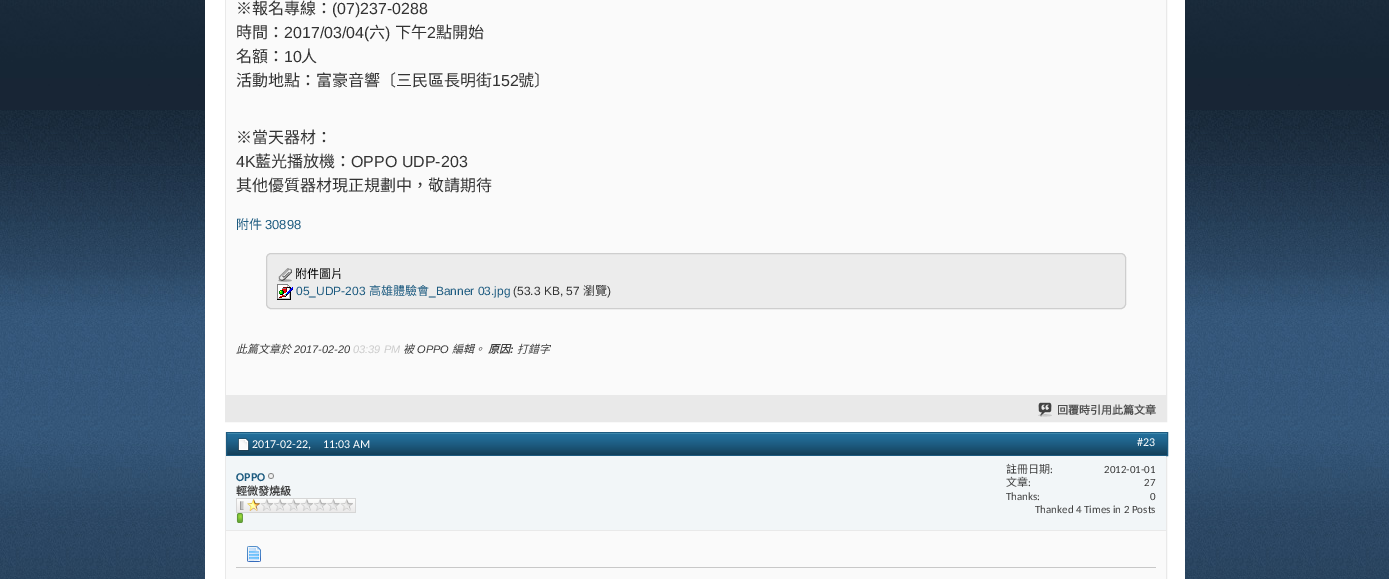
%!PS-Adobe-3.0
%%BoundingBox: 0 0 1389 579
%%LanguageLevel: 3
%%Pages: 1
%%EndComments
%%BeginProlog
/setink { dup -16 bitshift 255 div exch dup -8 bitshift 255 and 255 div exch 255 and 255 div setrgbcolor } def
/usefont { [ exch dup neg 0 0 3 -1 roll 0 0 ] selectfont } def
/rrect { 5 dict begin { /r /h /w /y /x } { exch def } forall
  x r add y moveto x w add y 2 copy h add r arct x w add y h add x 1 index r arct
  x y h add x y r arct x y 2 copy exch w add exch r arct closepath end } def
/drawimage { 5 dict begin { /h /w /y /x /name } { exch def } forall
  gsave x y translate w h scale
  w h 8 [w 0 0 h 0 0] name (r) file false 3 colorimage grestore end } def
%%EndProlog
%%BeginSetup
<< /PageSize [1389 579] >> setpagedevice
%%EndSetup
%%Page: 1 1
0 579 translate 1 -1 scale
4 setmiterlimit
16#FFFFFF setink
0 0 1389 579 rectfill
(img1.raw) 0 0 1389 579 drawimage
205 0 980 579 rectfill
16#E9E9E9 setink
225.5 -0.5 941 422 rectstroke
16#FAFAFA setink
226 0 940 395 rectfill
/NotoSansCJKTC-Regular 16 usefont
16#333333 setink
236 14 moveto (※報名專線：) show
/LiberationSans-Regular 16 usefont
332 14 moveto (\(07\)237-0288) show
/NotoSansCJKTC-Regular 16 usefont
236 38 moveto (時間：) show
/LiberationSans-Regular 16 usefont
284 38 moveto (2017/03/04\() show
/NotoSansCJKTC-Regular 16 usefont
369 38 moveto (六) show
/LiberationSans-Regular 16 usefont
385 38 moveto (\)) show
/NotoSansCJKTC-Regular 16 usefont
395 38 moveto (下午) show
/LiberationSans-Regular 16 usefont
427 38 moveto (2) show
/NotoSansCJKTC-Regular 16 usefont
436 38 moveto (點開始) show
236 62 moveto (名額：) show
/LiberationSans-Regular 16 usefont
284 62 moveto (10) show
/NotoSansCJKTC-Regular 16 usefont
301 62 moveto (人) show
236 86 moveto (活動地點：富豪音響〔三民區長明街) show
/LiberationSans-Regular 16 usefont
492 86 moveto (152) show
/NotoSansCJKTC-Regular 16 usefont
518 86 moveto (號〕) show
236 143 moveto (※當天器材：) show
/LiberationSans-Regular 16 usefont
236 167 moveto (4K) show
/NotoSansCJKTC-Regular 16 usefont
255 167 moveto (藍光播放機：) show
/LiberationSans-Regular 16 usefont
351 167 moveto (OPPO UDP-203) show
/NotoSansCJKTC-Regular 16 usefont
236 191 moveto (其他優質器材現正規劃中，敬請期待) show
/NotoSansCJKTC-Regular 13 usefont
16#1D5B80 setink
236 229 moveto (附件) show
/LiberationSans-Regular 13 usefont
265 229 moveto (30898) show
16#ECECEC setink
266.5 253.5 859 55 4.5 rrect gsave fill grestore
16#CECECE setink
stroke
(img2.raw) 278 268 14 14 drawimage
/NotoSansCJKTC-Regular 12 usefont
16#000000 setink
295 278 moveto (附件圖片) show
(img3.raw) 277 284 16 16 drawimage
/LiberationSans-Regular 12 usefont
16#1D5B80 setink
296 295 moveto (05_UDP-203) show
/NotoSansCJKTC-Regular 12 usefont
369 295 moveto (高雄體驗會) show
/LiberationSans-Regular 12 usefont
429 295 moveto (_Banner 03.jpg) show
16#333333 setink
513 295 moveto (\(53.3 KB, 57) show
/NotoSansCJKTC-Regular 12 usefont
583 295 moveto (瀏覽) show
/LiberationSans-Regular 12 usefont
607 295 moveto (\)) show
/NotoSansCJKTC-Italic 11 usefont
16#3E3E3E setink
236 353 moveto (此篇文章於) show
/LiberationSans-Italic 11 usefont
294 353 moveto (2017-02-20) show
16#CCCCCC setink
353 353 moveto (03:39 PM) show
/NotoSansCJKTC-Italic 11 usefont
16#3E3E3E setink
403 353 moveto (被) show
/LiberationSans-Italic 11 usefont
417 353 moveto (OPPO) show
/NotoSansCJKTC-Italic 11 usefont
452 353 moveto (編輯。) show
/NotoSansCJKTC-BoldItalic 11 usefont
488 353 moveto (原因) show
/NotoSansCJKTC-Italic 11 usefont
517 353 moveto (打錯字) show
/LiberationSans-BoldItalic 11 usefont
510 353 moveto (:) show
16#E9E9E9 setink
226 395 940 26 rectfill
(img4.raw) 1038 402 14 15 drawimage
/NotoSansCJKTC-Bold 11 usefont
16#4E4E4E setink
1057 414 moveto (回覆時引用此篇文章) show
16#E9E9E9 setink
225.5 432.5 941 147 rectstroke
(img5.raw) 227 433 940 22 drawimage
16#1D5B80 setink
226.5 432.5 941 23 rectstroke
(img6.raw) 238 438 11 13 drawimage
/Carlito-Regular 12 usefont
16#FFFFFF setink
[
    [(2017-02-22,) 252 448]
    [(11:03 AM) 323 448]
    [(#23) 1137 446]
] { aload pop moveto show } forall
16#F2F6F8 setink
226 456 940 74 rectfill
16#E9E9E9 setink
226 530 940 1 rectfill
/Carlito-Bold 12 usefont
16#1D5B80 setink
236 481 moveto (OPPO) show
(img7.raw) 268 473 6 6 drawimage
/NotoSansCJKTC-Bold 11 usefont
16#3E3E3E setink
236 495 moveto (輕微發燒級) show
(img8.raw) 236 498 120 15 drawimage
(img9.raw) 236 513 7 10 drawimage
/NotoSansCJKTC-Regular 11 usefont
1006 473 moveto (註冊日期) show
/Carlito-Regular 11 usefont
1050 473 moveto (:) show
1104 473 moveto (2012-01-01) show
/NotoSansCJKTC-Regular 11 usefont
1006 486 moveto (文章) show
/Carlito-Regular 11 usefont
[
    [(:) 1028 486]
    [(27) 1144 486]
    [(Thanks:) 1006 500]
    [(0) 1150 500]
    [(Thanked 4 Times in 2 Posts) 1035 513]
] { aload pop moveto show } forall
16#FAFAFA setink
226 531 940 48 rectfill
16#C8C8C8 setink
236 567 920 1 rectfill
(img10.raw) 247 546 14 16 drawimage
showpage
%%EOF
